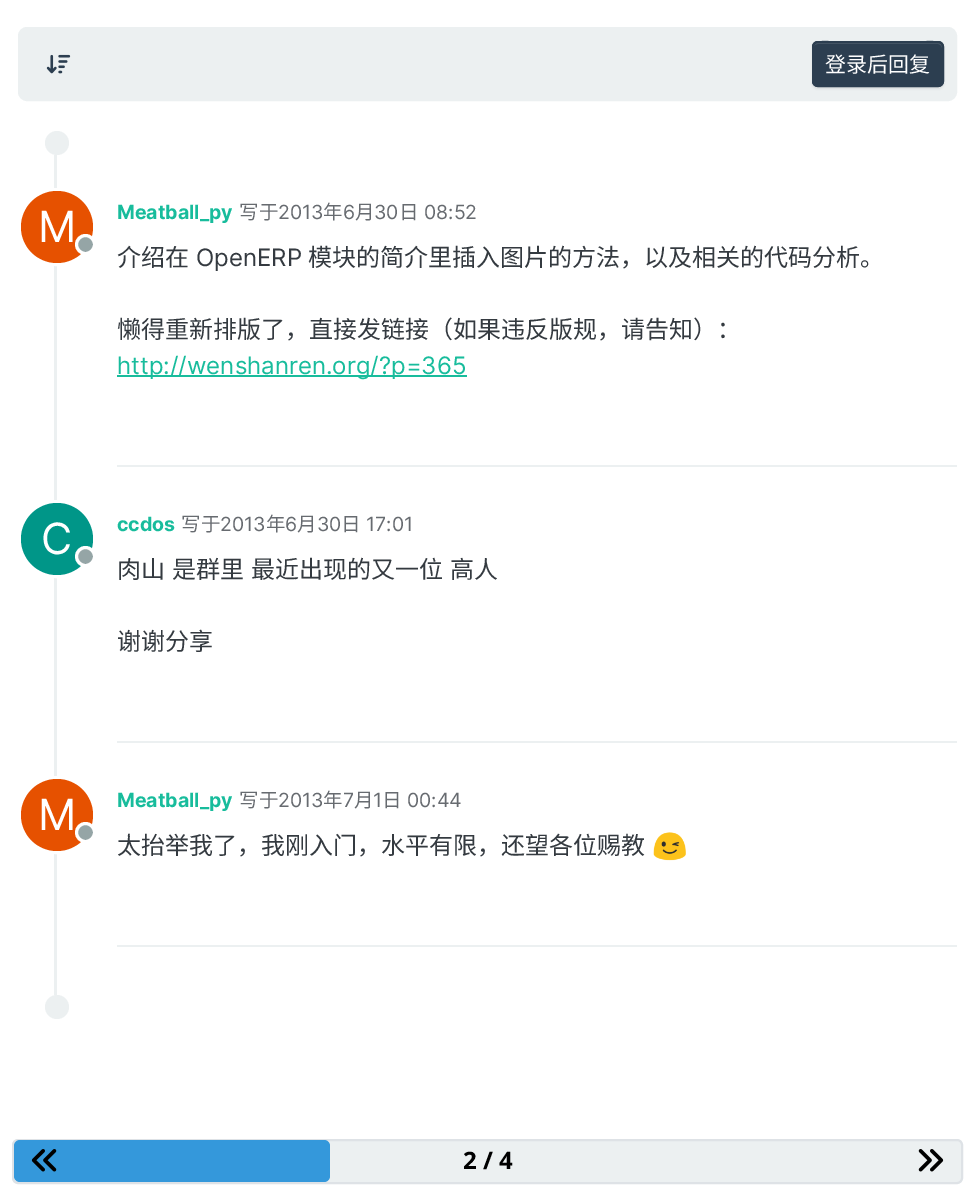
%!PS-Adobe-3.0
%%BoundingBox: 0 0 974 1201
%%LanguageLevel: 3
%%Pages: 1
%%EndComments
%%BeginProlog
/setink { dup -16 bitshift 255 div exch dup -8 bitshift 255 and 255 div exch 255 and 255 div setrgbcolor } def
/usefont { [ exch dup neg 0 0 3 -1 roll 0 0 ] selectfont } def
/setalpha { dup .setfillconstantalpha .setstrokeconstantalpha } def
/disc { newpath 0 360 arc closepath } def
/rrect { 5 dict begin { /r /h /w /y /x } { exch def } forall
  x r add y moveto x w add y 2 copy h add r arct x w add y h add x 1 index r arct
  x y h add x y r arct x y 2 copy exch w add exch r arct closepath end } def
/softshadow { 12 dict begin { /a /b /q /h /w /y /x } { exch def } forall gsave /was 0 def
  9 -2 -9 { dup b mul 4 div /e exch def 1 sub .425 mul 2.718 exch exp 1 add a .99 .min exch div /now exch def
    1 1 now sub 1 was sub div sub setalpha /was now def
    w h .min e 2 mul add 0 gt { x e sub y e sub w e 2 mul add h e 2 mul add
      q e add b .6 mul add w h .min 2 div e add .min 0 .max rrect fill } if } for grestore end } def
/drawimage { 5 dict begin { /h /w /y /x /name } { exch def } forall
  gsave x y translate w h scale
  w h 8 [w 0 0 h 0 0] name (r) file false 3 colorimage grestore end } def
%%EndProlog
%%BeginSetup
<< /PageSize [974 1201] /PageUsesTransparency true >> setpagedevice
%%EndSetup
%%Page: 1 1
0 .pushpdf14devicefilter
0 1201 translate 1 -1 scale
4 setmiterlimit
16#FFFFFF setink
0 0 974 1201 rectfill
16#ECF0F1 setink
19 28 937 72 8 rrect gsave fill grestore
2 setlinewidth
stroke
(img1.raw) 46 54 25 20 drawimage
16#000000 setink
812 42 132 47 6 1 0.07 softshadow
16#2C3E50 setink
812 41 132 46 6 rrect fill
16#4C5B6A setink
818 44 moveto 938 44 lineto 940 44 942 46 942 48 curveto 942 37 921 42 917 42 curveto 838 42 lineto 834 42 813 37 813 48 curveto 813 46 815 44 818 44 curveto closepath fill
16#2C3E50 setink
813 42 130 44 5 rrect stroke
/NotoSansCJKSC-Regular 21 usefont
16#FFFFFF setink
825 72 moveto (登录后回复) show
16#ECF0F1 setink
54 155 3 840 rectfill
57 143 12 disc fill
16#FFFFFF setink
3 setlinewidth
57 227 37.5 disc stroke
16#E65100 setink
57 227 36 disc fill
/Inter-Regular 43 usefont
16#FFFFFF setink
38 242 moveto (M) show
16#95A5A6 setink
85.5 244.5 9 disc gsave fill grestore
16#FFFFFF setink
stroke
/Inter-Bold 19.5 usefont
16#18BC9C setink
117 219 moveto (Meatball_py) show
/NotoSansCJKSC-Regular 19.5 usefont
16#676B70 setink
239 219 moveto (写于) show
/Inter-Regular 19.5 usefont
278 219 moveto (2013) show
/NotoSansCJKSC-Regular 19.5 usefont
323 219 moveto (年) show
/Inter-Regular 19.5 usefont
343 219 moveto (6) show
/NotoSansCJKSC-Regular 19.5 usefont
355 219 moveto (月) show
/Inter-Regular 19.5 usefont
374 219 moveto (30) show
/NotoSansCJKSC-Regular 19.5 usefont
399 219 moveto (日) show
/Inter-Regular 19.5 usefont
424 219 moveto (08:52) show
/NotoSansCJKSC-Regular 24 usefont
16#343A40 setink
117 266 moveto (介绍在) show
/Inter-Regular 24 usefont
196 266 moveto (OpenERP) show
/NotoSansCJKSC-Regular 24 usefont
308 266 moveto (模块的简介里插入图片的方法，以及相关的代码分析。) show
117 338 moveto (懒得重新排版了，直接发链接（如果违反版规，请告知）：) show
16#18BC9C setink
117 375 350 2 rectfill
/Inter-Regular 24 usefont
117 374 moveto (http://wenshanren.org/?p=365) show
16#ECF0F1 setink
117 465 840 2 rectfill
16#FFFFFF setink
57 539 37.5 disc stroke
16#009688 setink
57 539 36 disc fill
/Inter-Regular 43 usefont
16#FFFFFF setink
41 554 moveto (C) show
16#95A5A6 setink
85.5 556.5 9 disc gsave fill grestore
16#FFFFFF setink
stroke
/Inter-Bold 19.5 usefont
16#18BC9C setink
117 531 moveto (ccdos) show
/NotoSansCJKSC-Regular 19.5 usefont
16#676B70 setink
181 531 moveto (写于) show
/Inter-Regular 19.5 usefont
220 531 moveto (2013) show
/NotoSansCJKSC-Regular 19.5 usefont
266 531 moveto (年) show
/Inter-Regular 19.5 usefont
285 531 moveto (6) show
/NotoSansCJKSC-Regular 19.5 usefont
297 531 moveto (月) show
/Inter-Regular 19.5 usefont
317 531 moveto (30) show
/NotoSansCJKSC-Regular 19.5 usefont
341 531 moveto (日) show
/Inter-Regular 19.5 usefont
366 531 moveto (17:01) show
/NotoSansCJKSC-Regular 24 usefont
16#343A40 setink
117 578 moveto 1.5 0 32 (肉山 是群里 最近出现的又一位 高人) widthshow
117 650 moveto (谢谢分享) show
16#ECF0F1 setink
117 741 840 2 rectfill
16#FFFFFF setink
57 815 37.5 disc stroke
16#E65100 setink
57 815 36 disc fill
/Inter-Regular 43 usefont
16#FFFFFF setink
38 830 moveto (M) show
16#95A5A6 setink
85.5 832.5 9 disc gsave fill grestore
16#FFFFFF setink
stroke
/Inter-Bold 19.5 usefont
16#18BC9C setink
117 807 moveto (Meatball_py) show
/NotoSansCJKSC-Regular 19.5 usefont
16#676B70 setink
239 807 moveto (写于) show
/Inter-Regular 19.5 usefont
278 807 moveto (2013) show
/NotoSansCJKSC-Regular 19.5 usefont
323 807 moveto (年) show
/Inter-Regular 19.5 usefont
343 807 moveto (7) show
/NotoSansCJKSC-Regular 19.5 usefont
354 807 moveto (月) show
/Inter-Regular 19.5 usefont
373 807 moveto (1) show
/NotoSansCJKSC-Regular 19.5 usefont
382 807 moveto (日) show
/Inter-Regular 19.5 usefont
407 807 moveto (00:44) show
/NotoSansCJKSC-Regular 24 usefont
16#343A40 setink
117 854 moveto (太抬举我了，我刚入门，水平有限，还望各位赐教) show
(img2.raw) 653 832 33 29 drawimage
16#ECF0F1 setink
117 945 840 2 rectfill
57 1007 12 disc fill
13 1140 949 43 5 rrect gsave fill grestore
16#DEE2E6 setink
2 setlinewidth
stroke
16#3498DB setink
14 1140 316 42 6 rrect fill
(img3.raw) 31 1149 26 23 drawimage
/NotoSans-Bold 24 usefont
16#000000 setink
463 1169 moveto (2 / 4) show
(img4.raw) 918 1149 26 23 drawimage
.poppdf14devicefilter showpage
%%EOF
